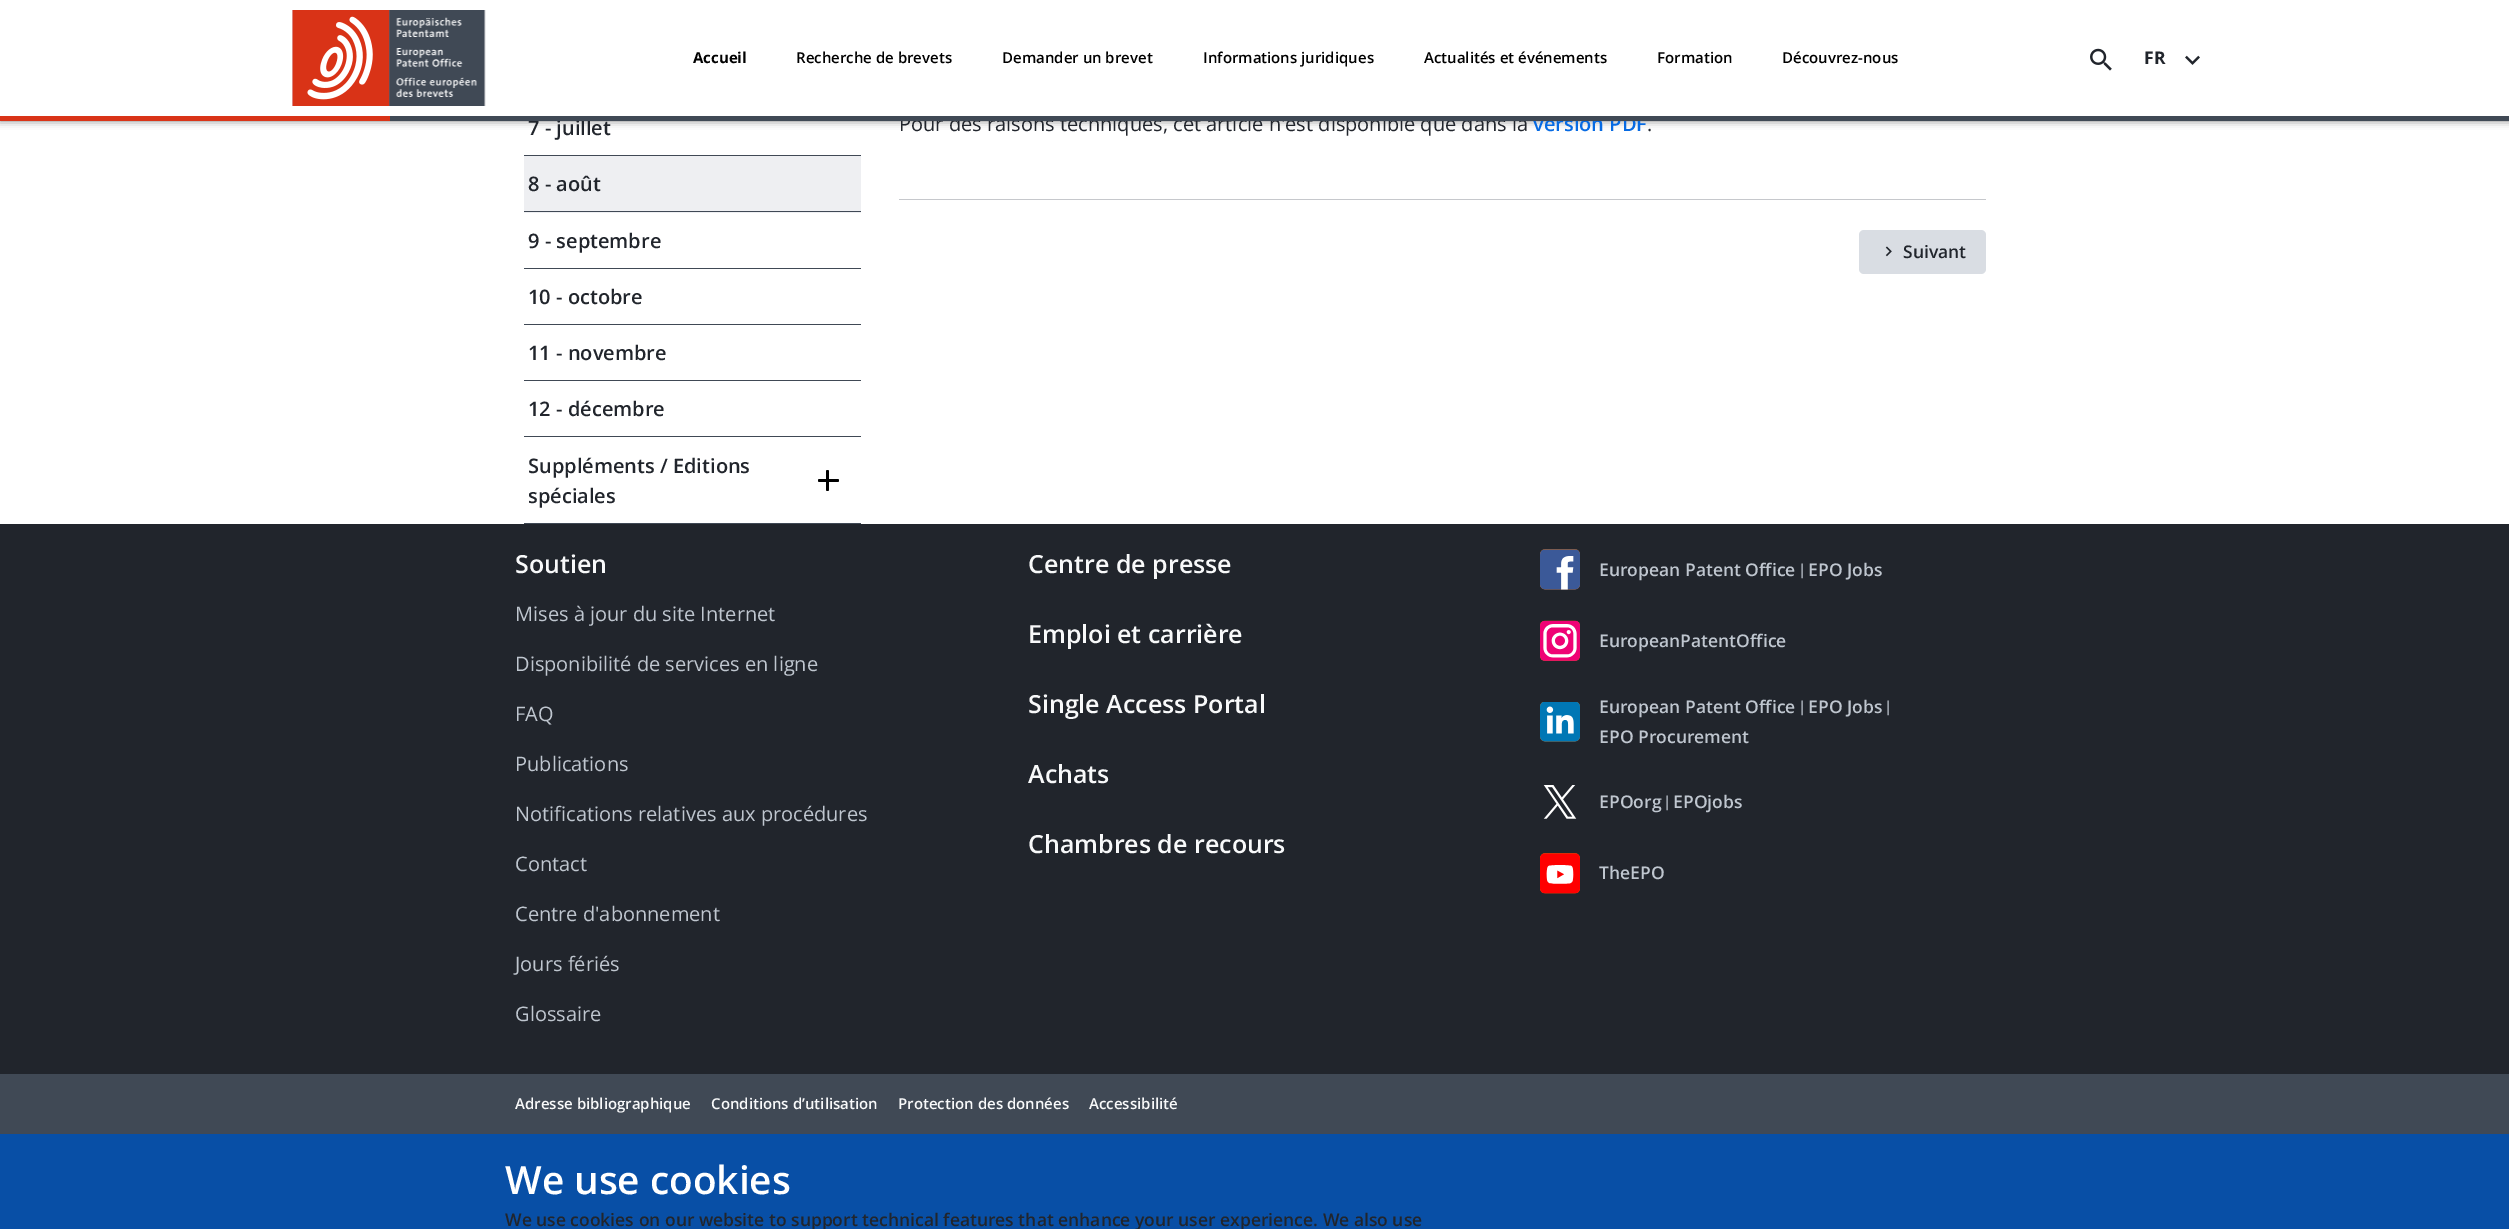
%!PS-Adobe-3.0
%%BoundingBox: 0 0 2509 1229
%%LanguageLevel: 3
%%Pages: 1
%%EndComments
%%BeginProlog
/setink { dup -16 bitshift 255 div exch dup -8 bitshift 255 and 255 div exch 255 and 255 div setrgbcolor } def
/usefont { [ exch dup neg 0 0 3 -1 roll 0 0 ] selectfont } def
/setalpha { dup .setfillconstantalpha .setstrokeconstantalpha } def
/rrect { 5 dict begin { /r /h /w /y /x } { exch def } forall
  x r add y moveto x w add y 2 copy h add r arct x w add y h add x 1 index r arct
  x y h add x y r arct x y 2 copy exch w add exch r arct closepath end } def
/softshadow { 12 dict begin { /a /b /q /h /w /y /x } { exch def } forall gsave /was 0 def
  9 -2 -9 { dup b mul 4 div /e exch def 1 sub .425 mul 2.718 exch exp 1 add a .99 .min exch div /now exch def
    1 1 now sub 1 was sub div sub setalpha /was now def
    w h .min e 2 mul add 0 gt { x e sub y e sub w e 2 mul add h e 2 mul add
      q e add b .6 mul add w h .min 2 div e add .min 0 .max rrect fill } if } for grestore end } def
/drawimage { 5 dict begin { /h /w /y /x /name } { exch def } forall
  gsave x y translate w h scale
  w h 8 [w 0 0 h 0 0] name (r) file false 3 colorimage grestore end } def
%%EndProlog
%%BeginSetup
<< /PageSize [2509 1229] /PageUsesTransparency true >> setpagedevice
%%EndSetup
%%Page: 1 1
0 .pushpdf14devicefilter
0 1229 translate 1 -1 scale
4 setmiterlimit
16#FFFFFF setink
0 0 2509 1229 rectfill
16#000000 setink
0 0 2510 121 0 4 0.5 softshadow
/OpenSans-Regular 20 usefont
16#21252C setink
899 131 moveto (Pour des raisons techniques, cet article n'est disponible que dans la) show
16#FFFFFF setink
0 0 2509 116 rectfill
/OpenSans-SemiBold 20 usefont
16#21252C setink
528 135 moveto (7 - juillet) show
16#066AE3 setink
1533 131 moveto (version PDF) show
16#404955 setink
390 116 2119 5 rectfill
(img1.raw) 292 10 194 96 drawimage
(img2.raw) 293 10 96 96 drawimage
16#D93317 setink
0 116 390 5 rectfill
/OpenSans-Bold 15 usefont
16#000000 setink
693 63 moveto (Accueil) show
/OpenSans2-SemiBold 15 usefont
[
    [(Recherche de brevets) 796 63]
    [(Demander un brevet) 1002 63]
    [(Informations juridiques) 1203 63]
    [(Actualités et événements) 1424 63]
    [(Formation) 1657 63]
    [(Découvrez-nous) 1782 63]
] { aload pop moveto show } forall
(img3.raw) 2090 48 22 23 drawimage
/OpenSans-Bold 17.5 usefont
16#21252C setink
2144 64 moveto (FR) show
(img4.raw) 2185 55 15 10 drawimage
[
    [524 155 337 1 16#404955]
    [524 156 337 57 16#EEEFF2]
    [524 211 337 1 16#404955]
] { aload pop setink rectfill } forall
/OpenSans-SemiBold 20 usefont
16#21252C setink
528 191 moveto (8 - août) show
16#404955 setink
524 268 337 1 rectfill
16#21252C setink
528 248 moveto (9 - septembre) show
16#404955 setink
524 324 337 1 rectfill
16#21252C setink
528 304 moveto (10 - octobre) show
16#404955 setink
524 380 337 1 rectfill
16#21252C setink
528 360 moveto (11 - novembre) show
16#404955 setink
524 436 337 1 rectfill
16#21252C setink
528 416 moveto (12 - décembre) show
16#404955 setink
524 523 337 1 rectfill
16#21252C setink
528 473 moveto (Suppléments / Editions) show
528 503 moveto (spéciales) show
16#000000 setink
826 470 3 21 1.5 rrect fill
818 479 21 3 1.5 rrect fill
/OpenSans-Regular 20 usefont
16#21252C setink
1647 131 moveto (.) show
16#C6C8CC setink
899 199 1087 1 rectfill
16#D9DDE3 setink
1859 230 127 44 5 rrect fill
(img5.raw) 1885 246 7 11 drawimage
/OpenSans-SemiBold 17.5 usefont
16#21252C setink
1903 258 moveto (Suivant) show
0 524 2509 550 rectfill
/OpenSans-SemiBold 25 usefont
16#F8F9FA setink
515 573 moveto (Soutien) show
/OpenSans-Regular 20 usefont
16#BFC6CF setink
[
    [(Mises à jour du site Internet) 515 621]
    [(Disponibilité de services en ligne) 515 671]
    [(FAQ) 515 721]
    [(Publications) 515 771]
    [(Notifications relatives aux procédures) 515 821]
    [(Contact) 515 871]
    [(Centre d'abonnement) 515 921]
    [(Jours fériés) 515 971]
    [(Glossaire) 515 1021]
] { aload pop moveto show } forall
/OpenSans-SemiBold 25 usefont
16#F8F9FA setink
[
    [(Centre de presse) 1028 573]
    [(Emploi et carrière) 1028 643]
    [(Single Access Portal) 1028 713]
    [(Achats) 1028 783]
    [(Chambres de recours) 1028 853]
] { aload pop moveto show } forall
(img6.raw) 1540 549 40 41 drawimage
/OpenSans-SemiBold 17.5 usefont
16#BFC6CF setink
1599 576 moveto (European Patent Office) show
/Roboto-Regular 17.5 usefont
1800 576 moveto (|) show
/OpenSans-SemiBold 17.5 usefont
1808 576 moveto (EPO Jobs) show
(img7.raw) 1540 620 40 41 drawimage
1599 647 moveto (EuropeanPatentOffice) show
(img8.raw) 1540 702 40 40 drawimage
1599 713 moveto (European Patent Office) show
/Roboto-Regular 17.5 usefont
1800 713 moveto (|) show
/OpenSans-SemiBold 17.5 usefont
1808 713 moveto (EPO Jobs) show
/Roboto-Regular 17.5 usefont
1886 713 moveto (|) show
/OpenSans-SemiBold 17.5 usefont
1599 743 moveto (EPO Procurement) show
(img9.raw) 1543 785 34 34 drawimage
1599 808 moveto (EPOorg) show
/Roboto-Regular 17.5 usefont
1665 808 moveto (|) show
/OpenSans-SemiBold 17.5 usefont
1673 808 moveto (EPOjobs) show
(img10.raw) 1540 853 40 41 drawimage
1599 879 moveto (TheEPO) show
16#404955 setink
0 1074 2509 60 rectfill
/OpenSans-SemiBold 15 usefont
16#F8F9FA setink
[
    [(Adresse bibliographique) 515 1109]
    [(Conditions d’utilisation) 711 1109]
    [(Protection des données) 898 1109]
    [(Accessibilité) 1089 1109]
] { aload pop moveto show } forall
16#084FA6 setink
0 1134 2509 95 rectfill
/OpenSans-SemiBold 38.75 usefont
16#FFFFFF setink
505 1194 moveto (We use cookies) show
/OpenSans-SemiBold 17.5 usefont
16#21252C setink
505 1226 moveto (We use cookies on our website to support technical features that enhance your user experience. We also use) show
.poppdf14devicefilter showpage
%%EOF
